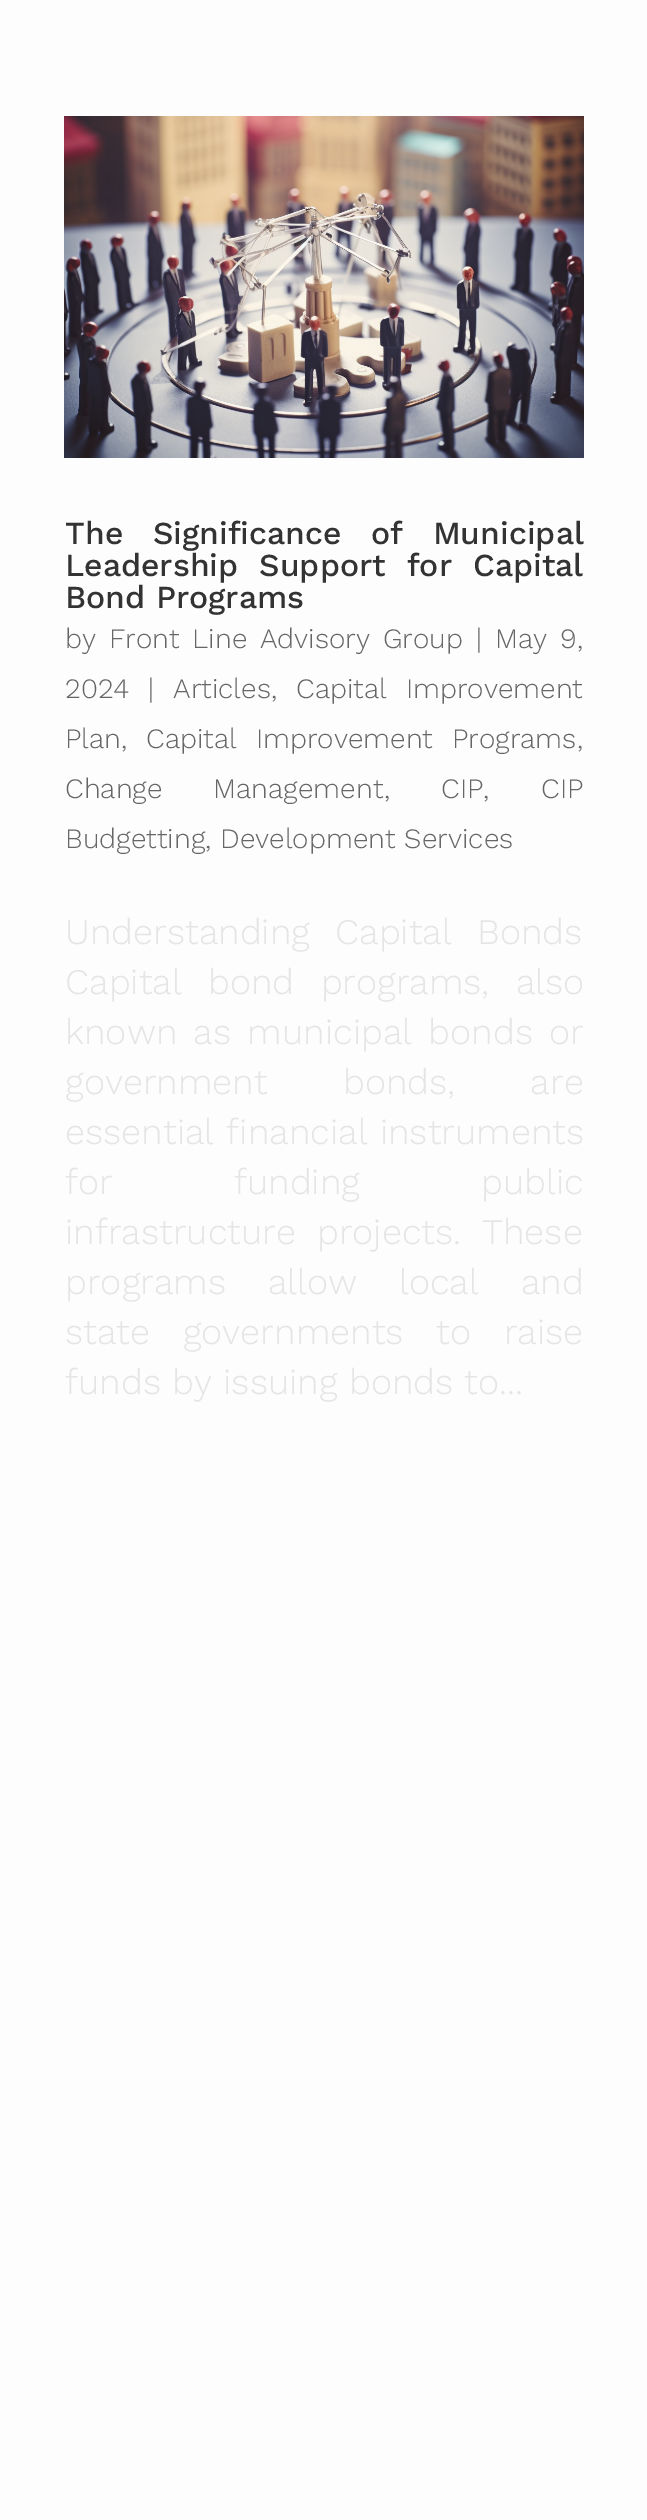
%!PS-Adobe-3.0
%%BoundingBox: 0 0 647 2520
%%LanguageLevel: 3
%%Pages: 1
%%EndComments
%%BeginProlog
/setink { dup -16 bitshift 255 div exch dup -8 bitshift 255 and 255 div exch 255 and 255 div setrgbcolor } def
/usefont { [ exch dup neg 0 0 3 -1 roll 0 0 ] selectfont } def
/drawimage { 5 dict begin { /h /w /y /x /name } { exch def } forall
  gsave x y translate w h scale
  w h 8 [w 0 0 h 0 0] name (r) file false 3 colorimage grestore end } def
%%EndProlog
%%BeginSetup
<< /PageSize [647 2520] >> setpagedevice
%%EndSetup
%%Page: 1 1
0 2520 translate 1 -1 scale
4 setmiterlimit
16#FDFDFD setink
0 0 647 2520 rectfill
(img1.raw) 64 116 520 342 drawimage
/WorkSans-Medium 32 usefont
16#333333 setink
65 544 moveto 19 0 32 (The Significance of Municipal) widthshow
65 576 moveto 10.5 0 32 (Leadership Support for Capital) widthshow
65 608 moveto (Bond Programs) show
/WorkSans-Light 28 usefont
16#666666 setink
65 648 moveto (by) show
109 648 moveto 4 0 32 (Front Line Advisory Group) widthshow
476 648 moveto (|) show
495 648 moveto 4 0 32 (May 9,) widthshow
[
    [(2024) 65 698]
    [(|) 148 698]
    [(Articles,) 173 698]
] { aload pop moveto show } forall
296 698 moveto 10 0 32 (Capital Improvement) widthshow
65 748 moveto (Plan,) show
146 748 moveto 10 0 32 (Capital Improvement Programs) widthshow
577 748 moveto (,) show
65 798 moveto 42 0 32 (Change Management) widthshow
[
    [(,) 384 798]
    [(CIP,) 441 798]
    [(CIP) 541 798]
    [(Budgetting, Development Services) 65 848]
] { aload pop moveto show } forall
/WorkSans-Light 36 usefont
16#E5E5E5 setink
65 944 moveto 14 0 32 (Understanding Capital Bonds) widthshow
65 994 moveto 15 0 32 (Capital bond programs, also) widthshow
65 1044 moveto 5 0 32 (known as municipal bonds or) widthshow
65 1094 moveto 64 0 32 (government bonds, are) widthshow
65 1144 moveto 1 0 32 (essential financial instruments) widthshow
65 1194 moveto 110 0 32 (for funding public) widthshow
65 1244 moveto 10 0 32 (infrastructure projects. These) widthshow
65 1294 moveto 30.5 0 32 (programs allow local and) widthshow
65 1344 moveto 21.5 0 32 (state governments to raise) widthshow
65 1394 moveto (funds by issuing bonds to...) show
showpage
%%EOF
